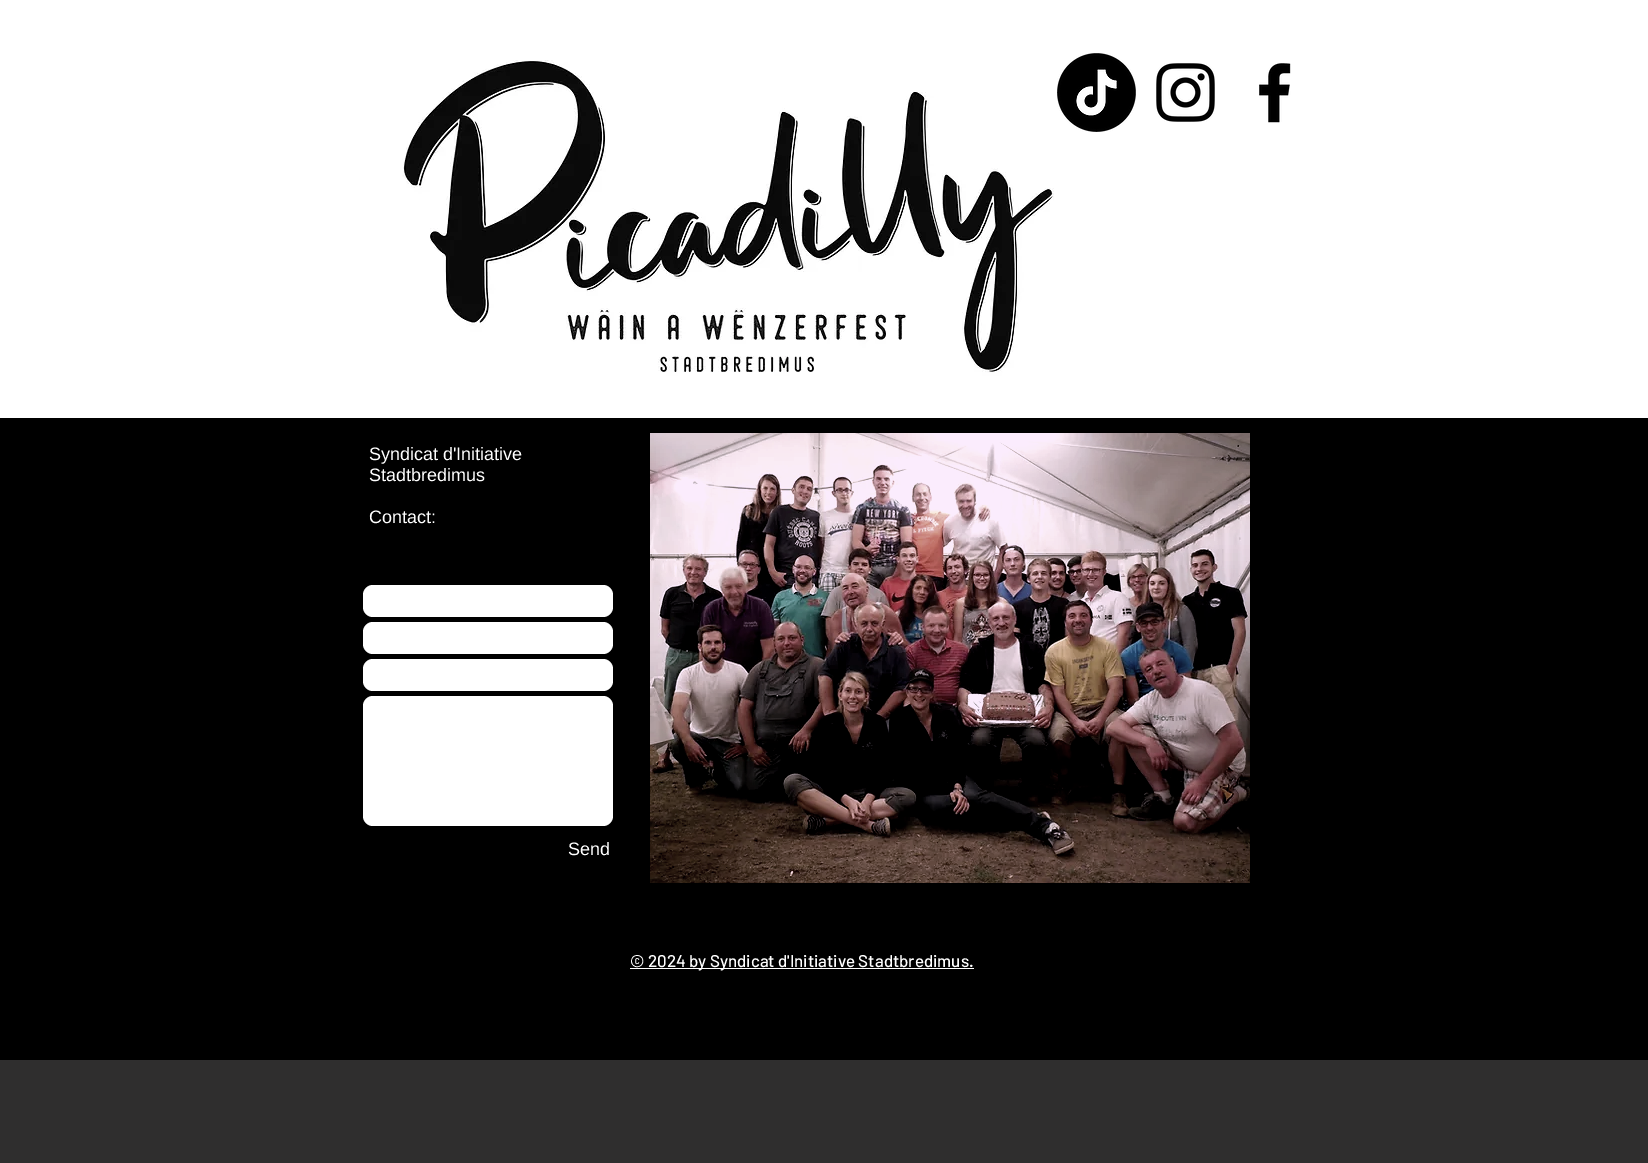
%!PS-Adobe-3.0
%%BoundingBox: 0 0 1648 1163
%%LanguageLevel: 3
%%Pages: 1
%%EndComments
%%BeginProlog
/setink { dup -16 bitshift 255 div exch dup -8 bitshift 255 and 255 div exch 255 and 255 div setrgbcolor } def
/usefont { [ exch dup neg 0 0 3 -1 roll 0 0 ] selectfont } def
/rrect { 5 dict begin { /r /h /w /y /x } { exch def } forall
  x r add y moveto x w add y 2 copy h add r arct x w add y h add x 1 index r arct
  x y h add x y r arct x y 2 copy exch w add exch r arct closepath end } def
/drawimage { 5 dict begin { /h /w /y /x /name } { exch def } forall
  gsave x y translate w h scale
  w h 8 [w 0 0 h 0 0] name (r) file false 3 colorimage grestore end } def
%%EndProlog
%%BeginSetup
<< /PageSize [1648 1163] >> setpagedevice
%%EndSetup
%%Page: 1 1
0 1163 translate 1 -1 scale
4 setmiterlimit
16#2F2E2E setink
0 0 1648 1163 rectfill
16#FFFFFF setink
0 0 1648 418 rectfill
(img1.raw) 334 60 775 358 drawimage
(img2.raw) 1057 53 79 79 drawimage
(img3.raw) 1156 63 59 59 drawimage
(img4.raw) 1259 63 32 60 drawimage
16#000000 setink
0 418 1648 642 rectfill
/LiberationSans-Regular 18 usefont
16#FFFFFF setink
[
    [(Syndicat d'Initiative) 369 460]
    [(Stadtbredimus) 369 481]
    [(Contact:) 369 523]
] { aload pop moveto show } forall
(img5.raw) 650 433 600 450 drawimage
363 585 250 32 10 rrect fill
363 622 250 32 10 rrect fill
363 659 250 32 10 rrect fill
363 696 250 130 10 rrect fill
568 855 moveto (Send) show
630 968 344 1 rectfill
/Barlow-Medium 17 usefont
630 967 moveto (© 2024 by Syndicat d'Initiative Stadtbredimus.) show
showpage
%%EOF
